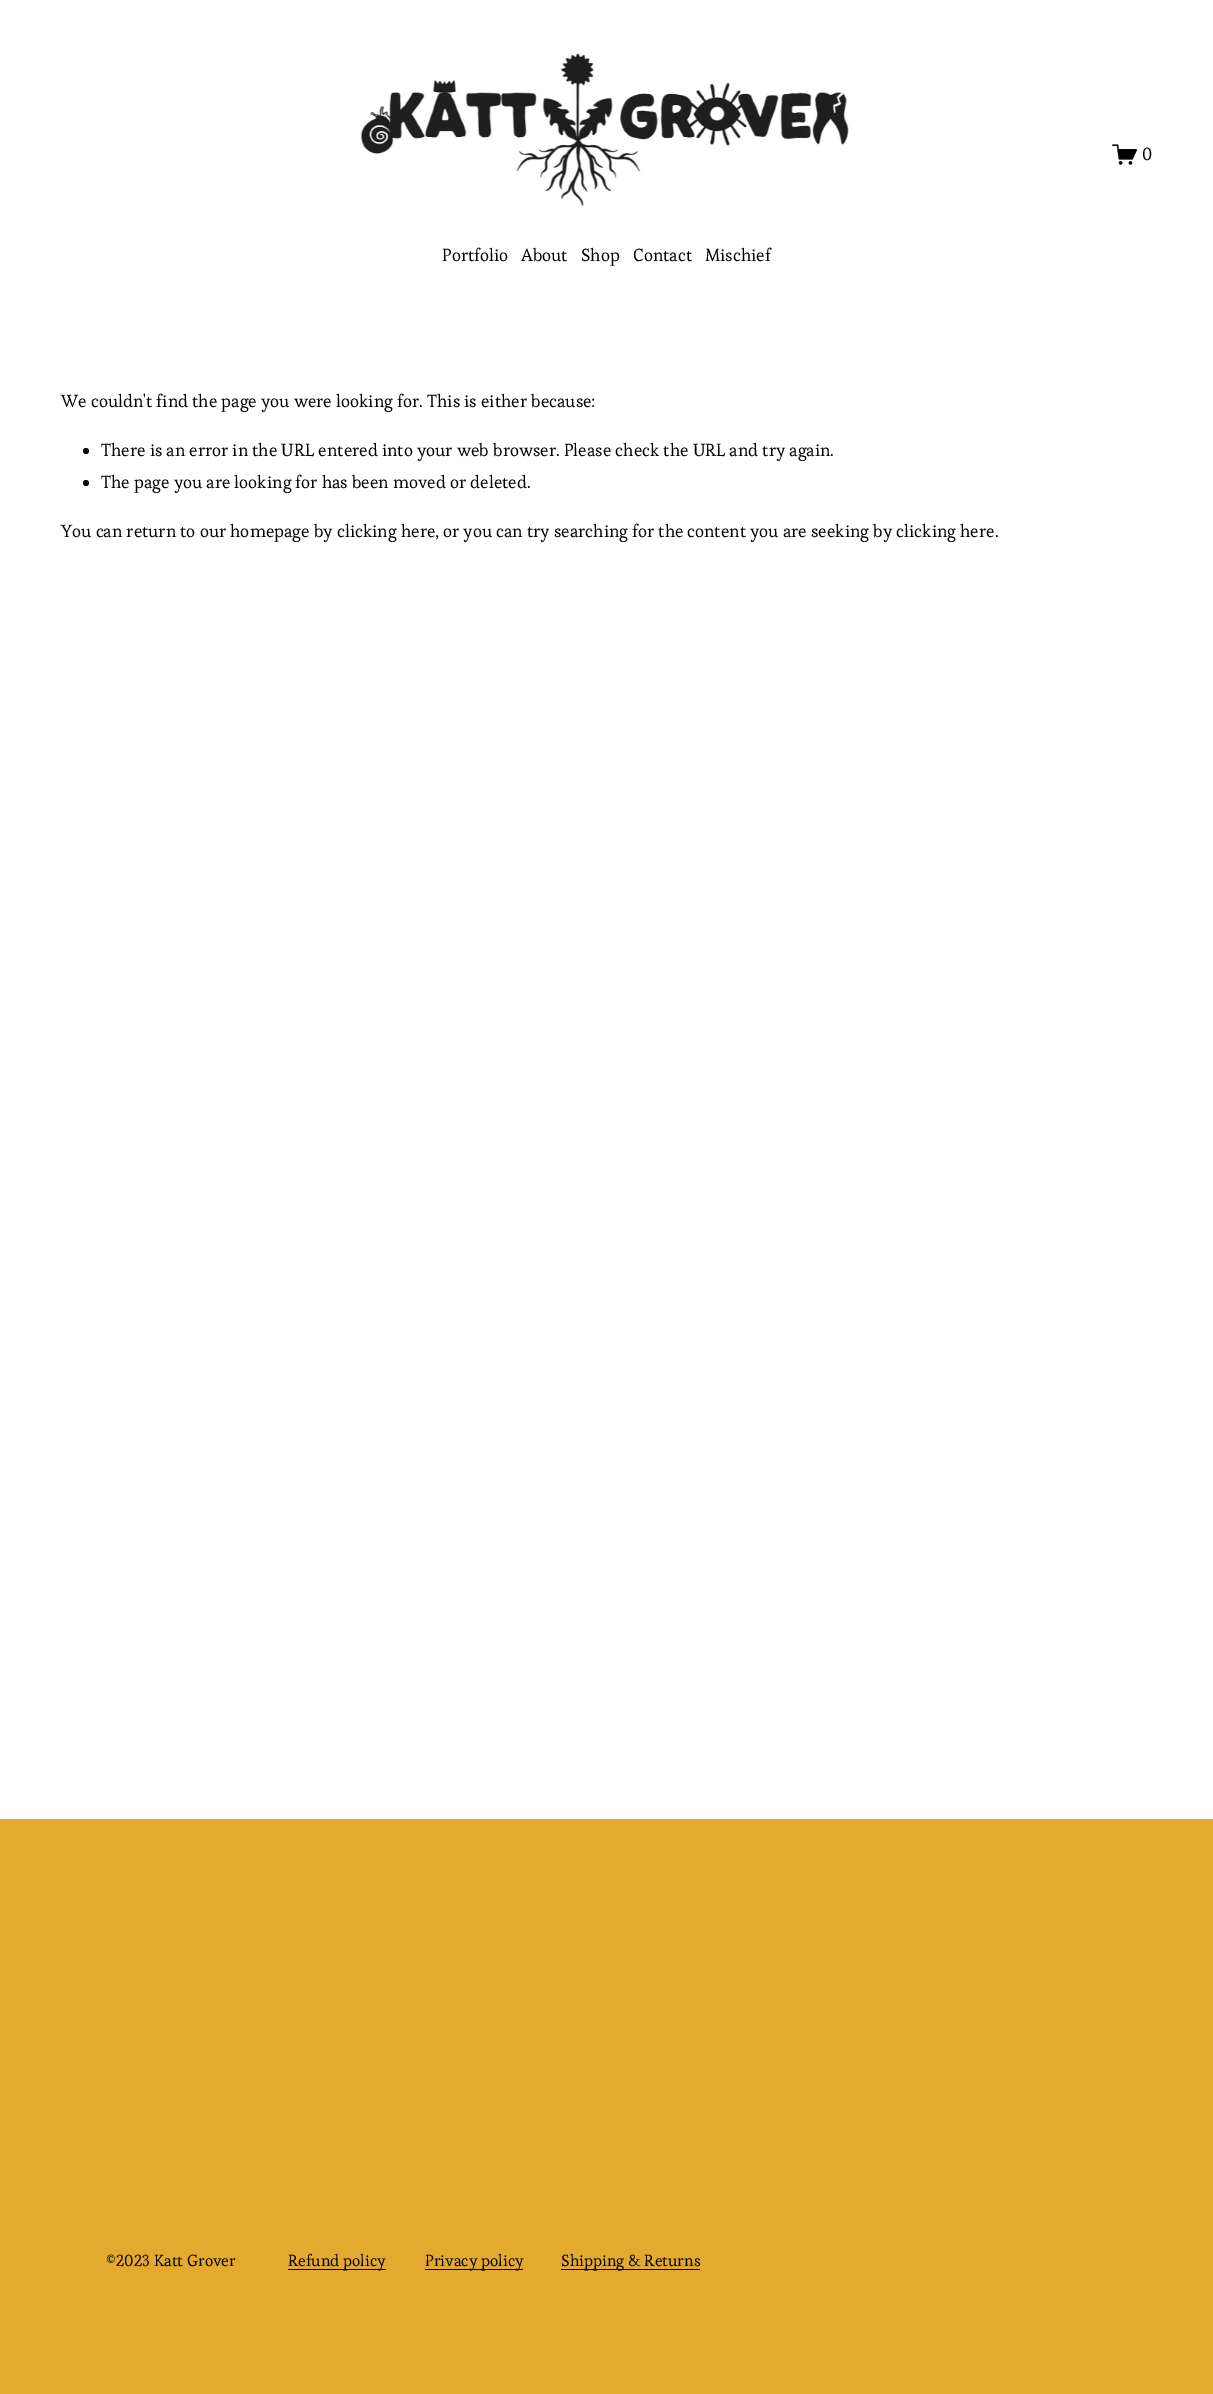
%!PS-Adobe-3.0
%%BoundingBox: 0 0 1213 2394
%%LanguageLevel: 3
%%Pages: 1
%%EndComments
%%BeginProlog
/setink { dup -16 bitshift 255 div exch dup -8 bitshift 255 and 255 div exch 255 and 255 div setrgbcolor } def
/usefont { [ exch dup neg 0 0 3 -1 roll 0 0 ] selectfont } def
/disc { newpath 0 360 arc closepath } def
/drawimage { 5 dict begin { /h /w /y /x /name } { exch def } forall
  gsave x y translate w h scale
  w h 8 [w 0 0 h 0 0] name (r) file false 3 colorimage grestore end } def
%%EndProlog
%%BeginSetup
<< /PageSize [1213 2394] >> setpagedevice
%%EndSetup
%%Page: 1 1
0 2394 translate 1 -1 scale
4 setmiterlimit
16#FFFFFF setink
0 0 1213 2394 rectfill
(img1.raw) 1112 144 25 21 drawimage
/Esteban-Regular 17.45 usefont
16#000000 setink
1142 160 moveto (0) show
(img2.raw) 360 53 489 154 drawimage
[
    [(Portfolio) 442 261]
    [(About) 521 261]
    [(Shop) 581 261]
    [(Contact) 633 261]
    [(Mischief) 705 261]
    [(We couldn't find the page you were looking for. This is either because:) 61 407]
] { aload pop moveto show } forall
86 451 3 disc fill
101 456 moveto (There is an error in the URL entered into your web browser. Please check the URL and try again.) show
86 483 3 disc fill
[
    [(The page you are looking for has been moved or deleted.) 101 488]
    [(You can return to our homepage by clicking here, or you can try searching for the) 61 537]
    [(content you are seeking by clicking here.) 687 537]
] { aload pop moveto show } forall
16#E4AA30 setink
0 1819 1213 575 rectfill
/Esteban-Regular 16 usefont
16#000000 setink
106 2266 moveto (©2023 Katt Grover) show
288 2269 98 1 rectfill
288 2266 moveto (Refund policy) show
425 2269 98 1 rectfill
425 2266 moveto (Privacy policy) show
561 2269 139 1 rectfill
561 2266 moveto (Shipping & Returns) show
showpage
%%EOF
